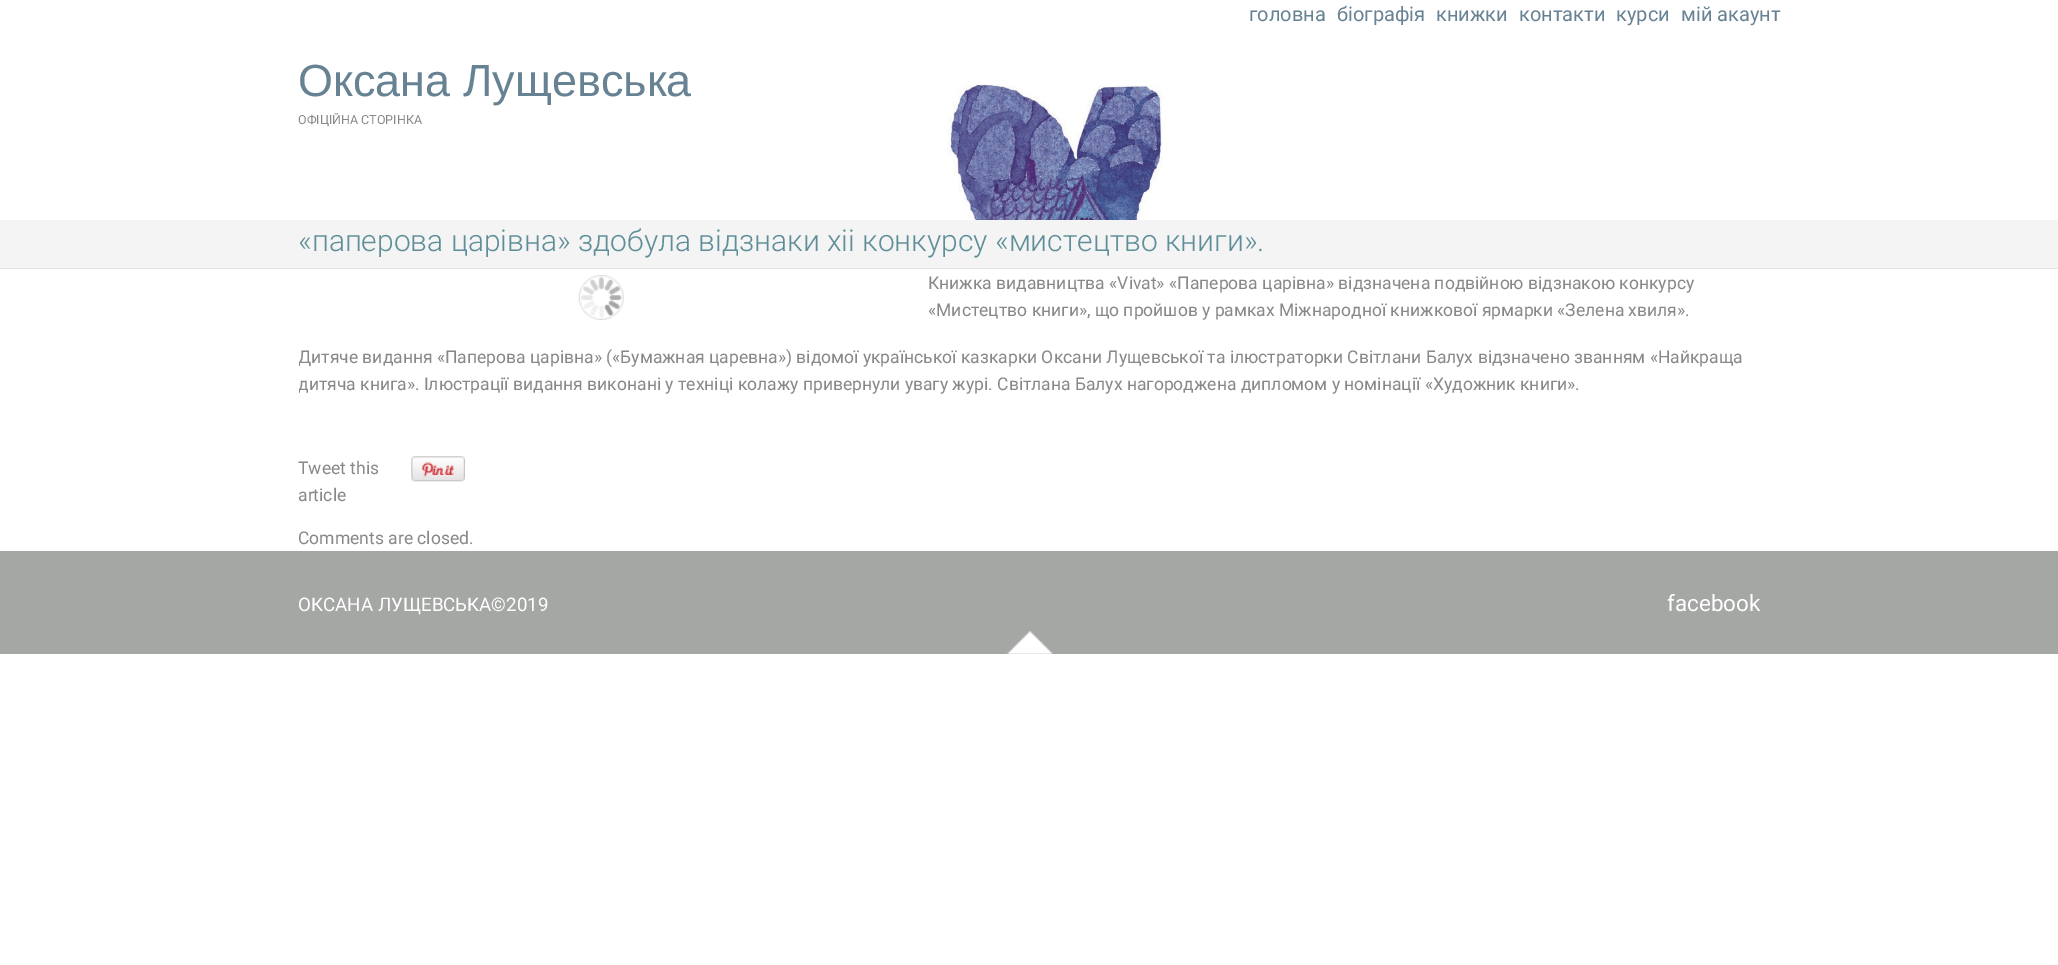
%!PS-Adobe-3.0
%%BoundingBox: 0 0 2058 965
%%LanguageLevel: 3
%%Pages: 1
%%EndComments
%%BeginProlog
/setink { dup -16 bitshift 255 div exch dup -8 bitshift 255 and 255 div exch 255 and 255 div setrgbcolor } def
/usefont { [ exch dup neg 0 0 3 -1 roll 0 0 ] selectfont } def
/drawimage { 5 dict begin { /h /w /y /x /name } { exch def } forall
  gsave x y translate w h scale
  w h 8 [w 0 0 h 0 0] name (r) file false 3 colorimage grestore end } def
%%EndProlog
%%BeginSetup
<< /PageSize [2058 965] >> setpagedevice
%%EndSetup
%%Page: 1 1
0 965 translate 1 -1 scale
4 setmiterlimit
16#FFFFFF setink
0 0 2058 965 rectfill
(img1.raw) 947 81 220 139 drawimage
/Roboto-Regular 20 usefont
16#678293 setink
[
    [(головна) 1249 21]
    [(біографія) 1337 21]
    [(книжки) 1436 21]
    [(контакти) 1519 21]
    [(курси) 1616 21]
    [(мій акаунт) 1681 21]
] { aload pop moveto show } forall
/LiberationSans-Regular 45 usefont
298 96 moveto (Оксана Лущевська) show
/Roboto-Regular 12.5 usefont
16#888888 setink
298 124 moveto (ОФІЦІЙНА СТОРІНКА) show
16#F4F4F4 setink
0 220 2058 48 rectfill
16#E4E4E4 setink
0 268 2058 1 rectfill
/Roboto-Light 30 usefont
16#5E8E98 setink
298 251 moveto («паперова царівна» здобула відзнаки xii конкурсу «мистецтво книги».) show
(img2.raw) 578 275 46 45 drawimage
/Roboto-Regular 17.5 usefont
16#888888 setink
928 289 moveto (Книжка видавництва «Vivat» «Паперова царівна» відзначена подвійною відзнакою конкурсу) show
928 316 moveto («Мистецтво книги», що пройшов у рамках Міжнародної книжкової ярмарки «Зелена хвиля».) show
gsave
299 269 1462 172 rectclip
298 363 moveto (Дитяче видання «Паперова царівна» \(«Бумажная царевна»\) відомої української казкарки Оксани Лущевської та ілюстраторки Світлани Балух відзначено званням «Найкраща) show
298 390 moveto (дитяча книга». Ілюстрації видання виконані у техніці колажу привернули увагу журі. Світлана Балух нагороджена дипломом у номінації «Художник книги».) show
grestore
298 474 moveto (Tweet this) show
298 501 moveto (article) show
(img3.raw) 411 456 54 26 drawimage
298 544 moveto (Comments are closed.) show
16#A5A7A5 setink
0 551 2058 103 rectfill
/Roboto-Regular 18.75 usefont
16#FFFFFF setink
298 611 moveto (ОКСАНА ЛУЩЕВСЬКА©2019) show
/Roboto-Regular 22.5 usefont
1667 611 moveto (facebook) show
(img4.raw) 1007 631 46 23 drawimage
showpage
%%EOF
